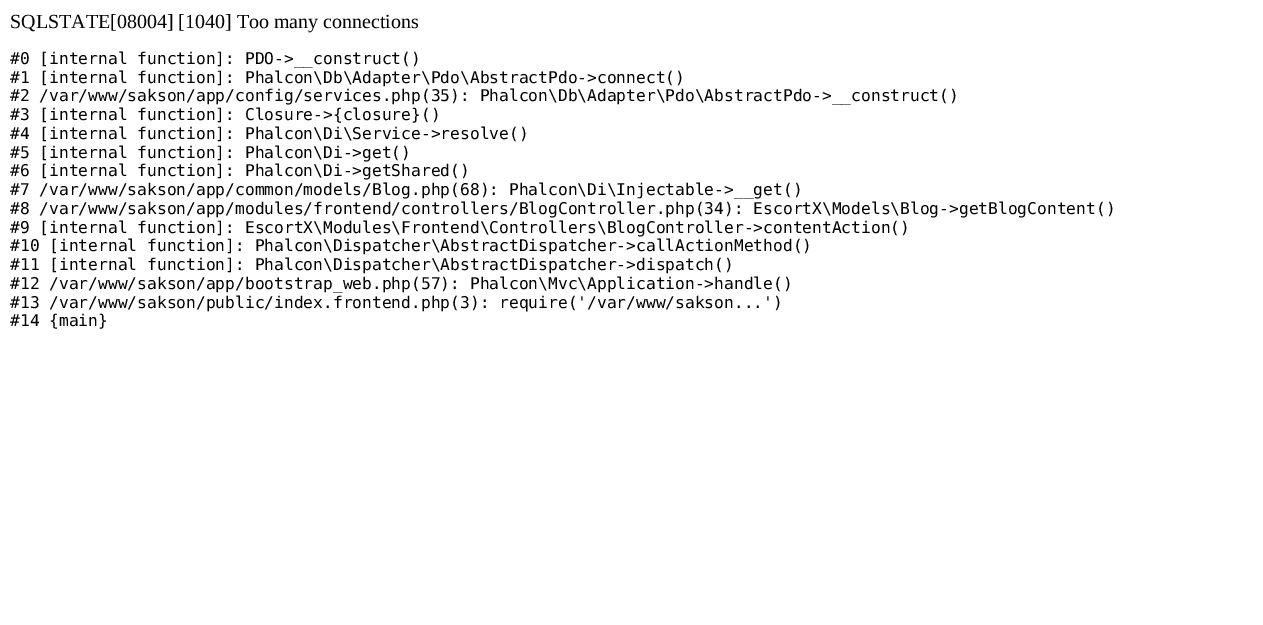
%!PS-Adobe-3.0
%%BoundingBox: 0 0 1263 625
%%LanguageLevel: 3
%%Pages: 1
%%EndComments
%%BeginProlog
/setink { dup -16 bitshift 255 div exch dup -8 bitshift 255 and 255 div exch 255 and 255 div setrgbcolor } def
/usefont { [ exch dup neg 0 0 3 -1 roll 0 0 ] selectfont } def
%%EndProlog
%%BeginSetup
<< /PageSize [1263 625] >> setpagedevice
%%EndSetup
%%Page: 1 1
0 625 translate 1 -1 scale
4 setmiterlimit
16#FFFFFF setink
0 0 1263 625 rectfill
/LiberationSerif-Regular 20 usefont
16#000000 setink
10 28 moveto (SQLSTATE[08004] [1040] Too many connections) show
/DejaVuSansMono-Regular 16.25 usefont
[
    [(#0 [internal function]: PDO->__construct\(\)) 10 64]
    [(#1 [internal function]: Phalcon\\Db\\Adapter\\Pdo\\AbstractPdo->connect\(\)) 10 83]
    [(#2 /var/www/sakson/app/config/services.php\(35\): Phalcon\\Db\\Adapter\\Pdo\\AbstractPdo->__construct\(\)) 10 101]
    [(#3 [internal function]: Closure->{closure}\(\)) 10 120]
    [(#4 [internal function]: Phalcon\\Di\\Service->resolve\(\)) 10 139]
    [(#5 [internal function]: Phalcon\\Di->get\(\)) 10 158]
    [(#6 [internal function]: Phalcon\\Di->getShared\(\)) 10 176]
    [(#7 /var/www/sakson/app/common/models/Blog.php\(68\): Phalcon\\Di\\Injectable->__get\(\)) 10 195]
    [(#8 /var/www/sakson/app/modules/frontend/controllers/BlogController.php\(34\): EscortX\\Models\\Blog->getBlogContent\(\)) 10 214]
    [(#9 [internal function]: EscortX\\Modules\\Frontend\\Controllers\\BlogController->contentAction\(\)) 10 233]
    [(#10 [internal function]: Phalcon\\Dispatcher\\AbstractDispatcher->callActionMethod\(\)) 10 251]
    [(#11 [internal function]: Phalcon\\Dispatcher\\AbstractDispatcher->dispatch\(\)) 10 270]
    [(#12 /var/www/sakson/app/bootstrap_web.php\(57\): Phalcon\\Mvc\\Application->handle\(\)) 10 289]
    [(#13 /var/www/sakson/public/index.frontend.php\(3\): require\('/var/www/sakson...'\)) 10 308]
    [(#14 {main}) 10 326]
] { aload pop moveto show } forall
showpage
%%EOF
